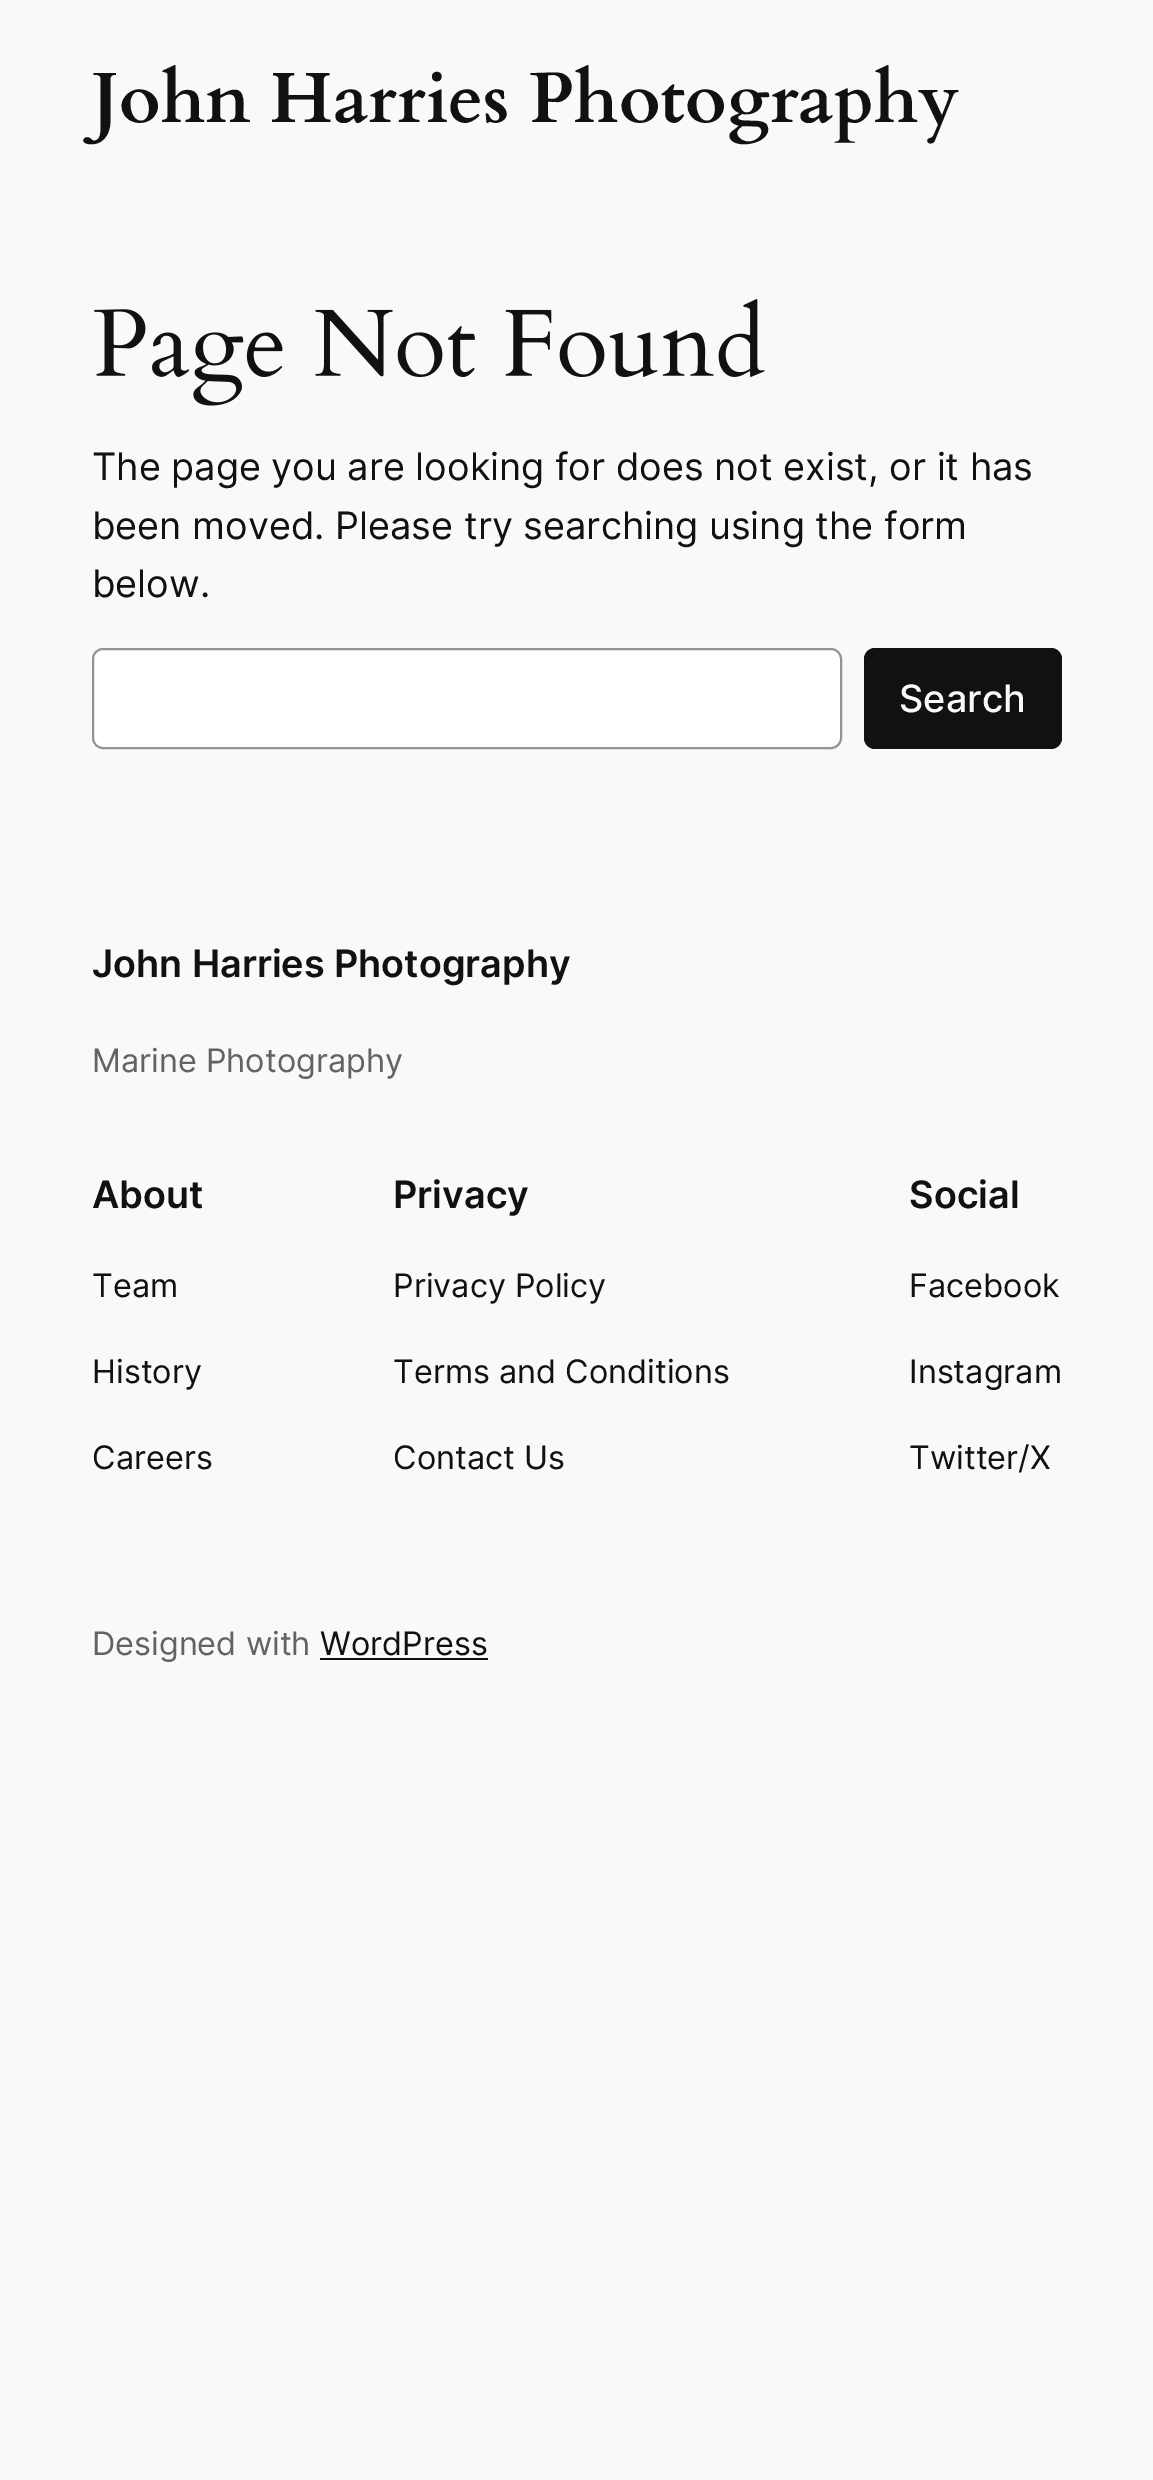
%!PS-Adobe-3.0
%%BoundingBox: 0 0 1153 2480
%%LanguageLevel: 3
%%Pages: 1
%%EndComments
%%BeginProlog
/setink { dup -16 bitshift 255 div exch dup -8 bitshift 255 and 255 div exch 255 and 255 div setrgbcolor } def
/usefont { [ exch dup neg 0 0 3 -1 roll 0 0 ] selectfont } def
/rrect { 5 dict begin { /r /h /w /y /x } { exch def } forall
  x r add y moveto x w add y 2 copy h add r arct x w add y h add x 1 index r arct
  x y h add x y r arct x y 2 copy exch w add exch r arct closepath end } def
/drawimage { 5 dict begin { /h /w /y /x /name } { exch def } forall
  gsave x y translate w h scale
  w h 8 [w 0 0 h 0 0] name (r) file false 3 colorimage grestore end } def
%%EndProlog
%%BeginSetup
<< /PageSize [1153 2480] >> setpagedevice
%%EndSetup
%%Page: 1 1
0 2480 translate 1 -1 scale
4 setmiterlimit
16#F9F9F9 setink
0 0 1153 2480 rectfill
/Cardo-Bold 71.25 usefont
16#111111 setink
92 122 moveto (John Harries Photography) show
(img1.raw) 94 299 671 107 drawimage
/Inter-Regular 37.8 usefont
[
    [(The page you are looking for does not exist, or it has) 92 480]
    [(been moved. Please try searching using the form) 92 539]
    [(below.) 92 597]
] { aload pop moveto show } forall
16#FFFFFF setink
93 649 748 99 10 rrect gsave fill grestore
16#949494 setink
2 setlinewidth
stroke
16#111111 setink
864 648 198 101 11 rrect fill
/Inter-Medium 37.8 usefont
16#F9F9F9 setink
899 712 moveto (Search) show
/Inter-SemiBold 37.8 usefont
16#111111 setink
92 977 moveto (John Harries Photography) show
/Inter-Regular 32.4 usefont
16#636363 setink
92 1072 moveto (Marine Photography) show
/Inter-SemiBold 37.8 usefont
16#111111 setink
92 1208 moveto (About) show
/Inter-Regular 32.4 usefont
[
    [(Team) 92 1297]
    [(History) 92 1383]
    [(Careers) 92 1469]
] { aload pop moveto show } forall
/Inter-SemiBold 37.8 usefont
393 1208 moveto (Privacy) show
/Inter-Regular 32.4 usefont
[
    [(Privacy Policy) 393 1297]
    [(Terms and Conditions) 393 1383]
    [(Contact Us) 393 1469]
] { aload pop moveto show } forall
/Inter-SemiBold 37.8 usefont
909 1208 moveto (Social) show
/Inter-Regular 32.4 usefont
[
    [(Facebook) 909 1297]
    [(Instagram) 909 1383]
    [(Twitter/X) 909 1469]
] { aload pop moveto show } forall
16#636363 setink
92 1655 moveto (Designed with) show
16#111111 setink
320 1655 moveto (WordPress) show
320 1658 168 2 rectfill
showpage
%%EOF
